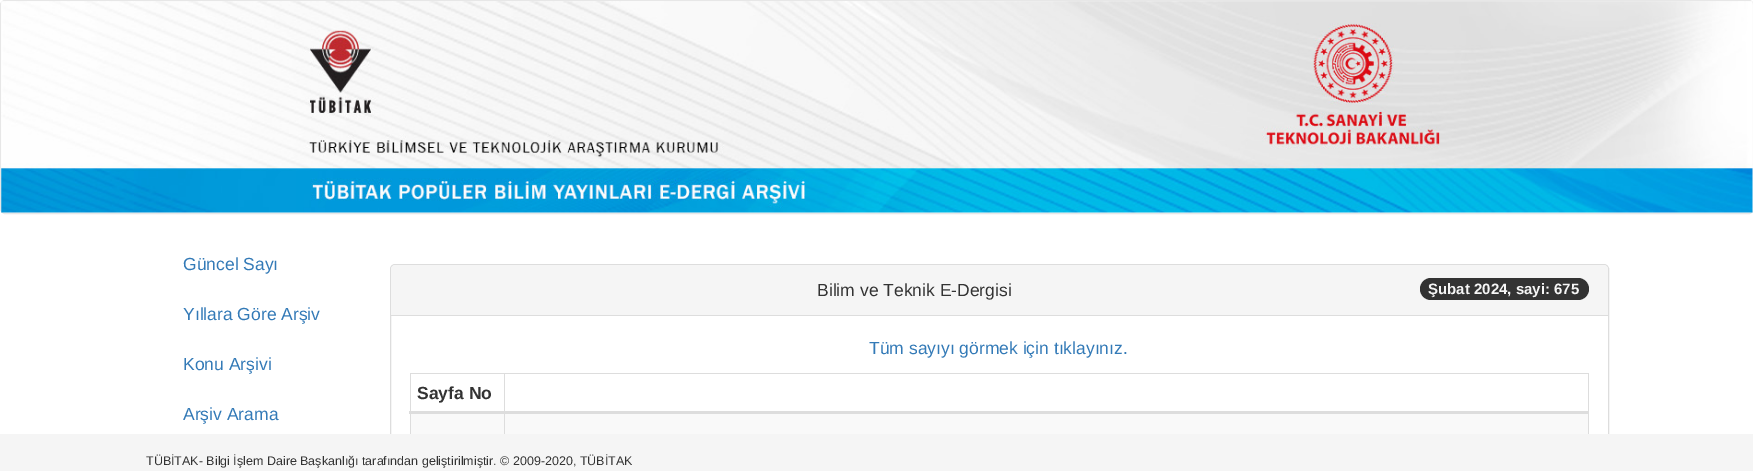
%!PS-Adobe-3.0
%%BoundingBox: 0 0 1753 471
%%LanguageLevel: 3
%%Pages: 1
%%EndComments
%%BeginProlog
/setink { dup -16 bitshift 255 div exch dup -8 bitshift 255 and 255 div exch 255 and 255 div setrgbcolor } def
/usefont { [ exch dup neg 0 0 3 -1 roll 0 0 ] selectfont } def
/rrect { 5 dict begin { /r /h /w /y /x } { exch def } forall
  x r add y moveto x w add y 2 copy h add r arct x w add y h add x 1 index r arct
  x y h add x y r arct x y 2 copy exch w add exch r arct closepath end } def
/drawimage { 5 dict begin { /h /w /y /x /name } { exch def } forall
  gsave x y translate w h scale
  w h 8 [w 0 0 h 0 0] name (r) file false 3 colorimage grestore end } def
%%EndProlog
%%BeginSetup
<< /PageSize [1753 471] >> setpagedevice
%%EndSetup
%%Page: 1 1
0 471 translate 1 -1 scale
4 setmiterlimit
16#FFFFFF setink
0 0 1753 471 rectfill
16#F8F8F8 setink
0.5 0.5 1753 213 4.5 rrect gsave fill grestore
16#E7E7E7 setink
stroke
(img1.raw) 1 1 1752 212 drawimage
/LiberationSans-Regular 17.5 usefont
16#337AB7 setink
[
    [(Güncel Sayı) 183 270]
    [(Yıllara Göre Arşiv) 183 320]
    [(Konu Arşivi) 183 370]
    [(Arşiv Arama) 183 420]
] { aload pop moveto show } forall
16#DDDDDD setink
390.5 264.5 1218 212 4.5 rrect stroke
16#F5F5F5 setink
395 265 moveto 1604 265 lineto 1606 265 1608 267 1608 269 curveto 1608 316 lineto 391 316 lineto 391 269 lineto 391 267 393 265 395 265 curveto closepath fill
16#DDDDDD setink
391 315 1217 1 rectfill
16#333333 setink
817 296 moveto (Bilim ve Teknik E-Dergisi) show
1420 278 169 22 11 rrect fill
/LiberationSans-Bold 15 usefont
16#F5F5F5 setink
1428 294 moveto (Şubat 2024, sayi: 675) show
/LiberationSans-Regular 17.5 usefont
16#337AB7 setink
869 354 moveto (Tüm sayıyı görmek için tıklayınız.) show
[
    [410 373 1179 1 16#DDDDDD]
    [1588 373 1 61 16#DDDDDD]
    [410 373 1 61 16#DDDDDD]
    [411 414 1177 20 16#F9F9F9]
    [504 373 1 61 16#DDDDDD]
] { aload pop setink rectfill } forall
/LiberationSans-Bold 17.5 usefont
16#333333 setink
417 399 moveto (Sayfa No) show
16#DDDDDD setink
409 411 1180 3 rectfill
16#F5F5F5 setink
0 434 1753 37 rectfill
/LiberationSans-Regular 12.5 usefont
16#333333 setink
146 465 moveto (TÜBİTAK- Bilgi İşlem Daire Başkanlığı tarafından geliştirilmiştir. © 2009-2020, TÜBİTAK) show
showpage
%%EOF
